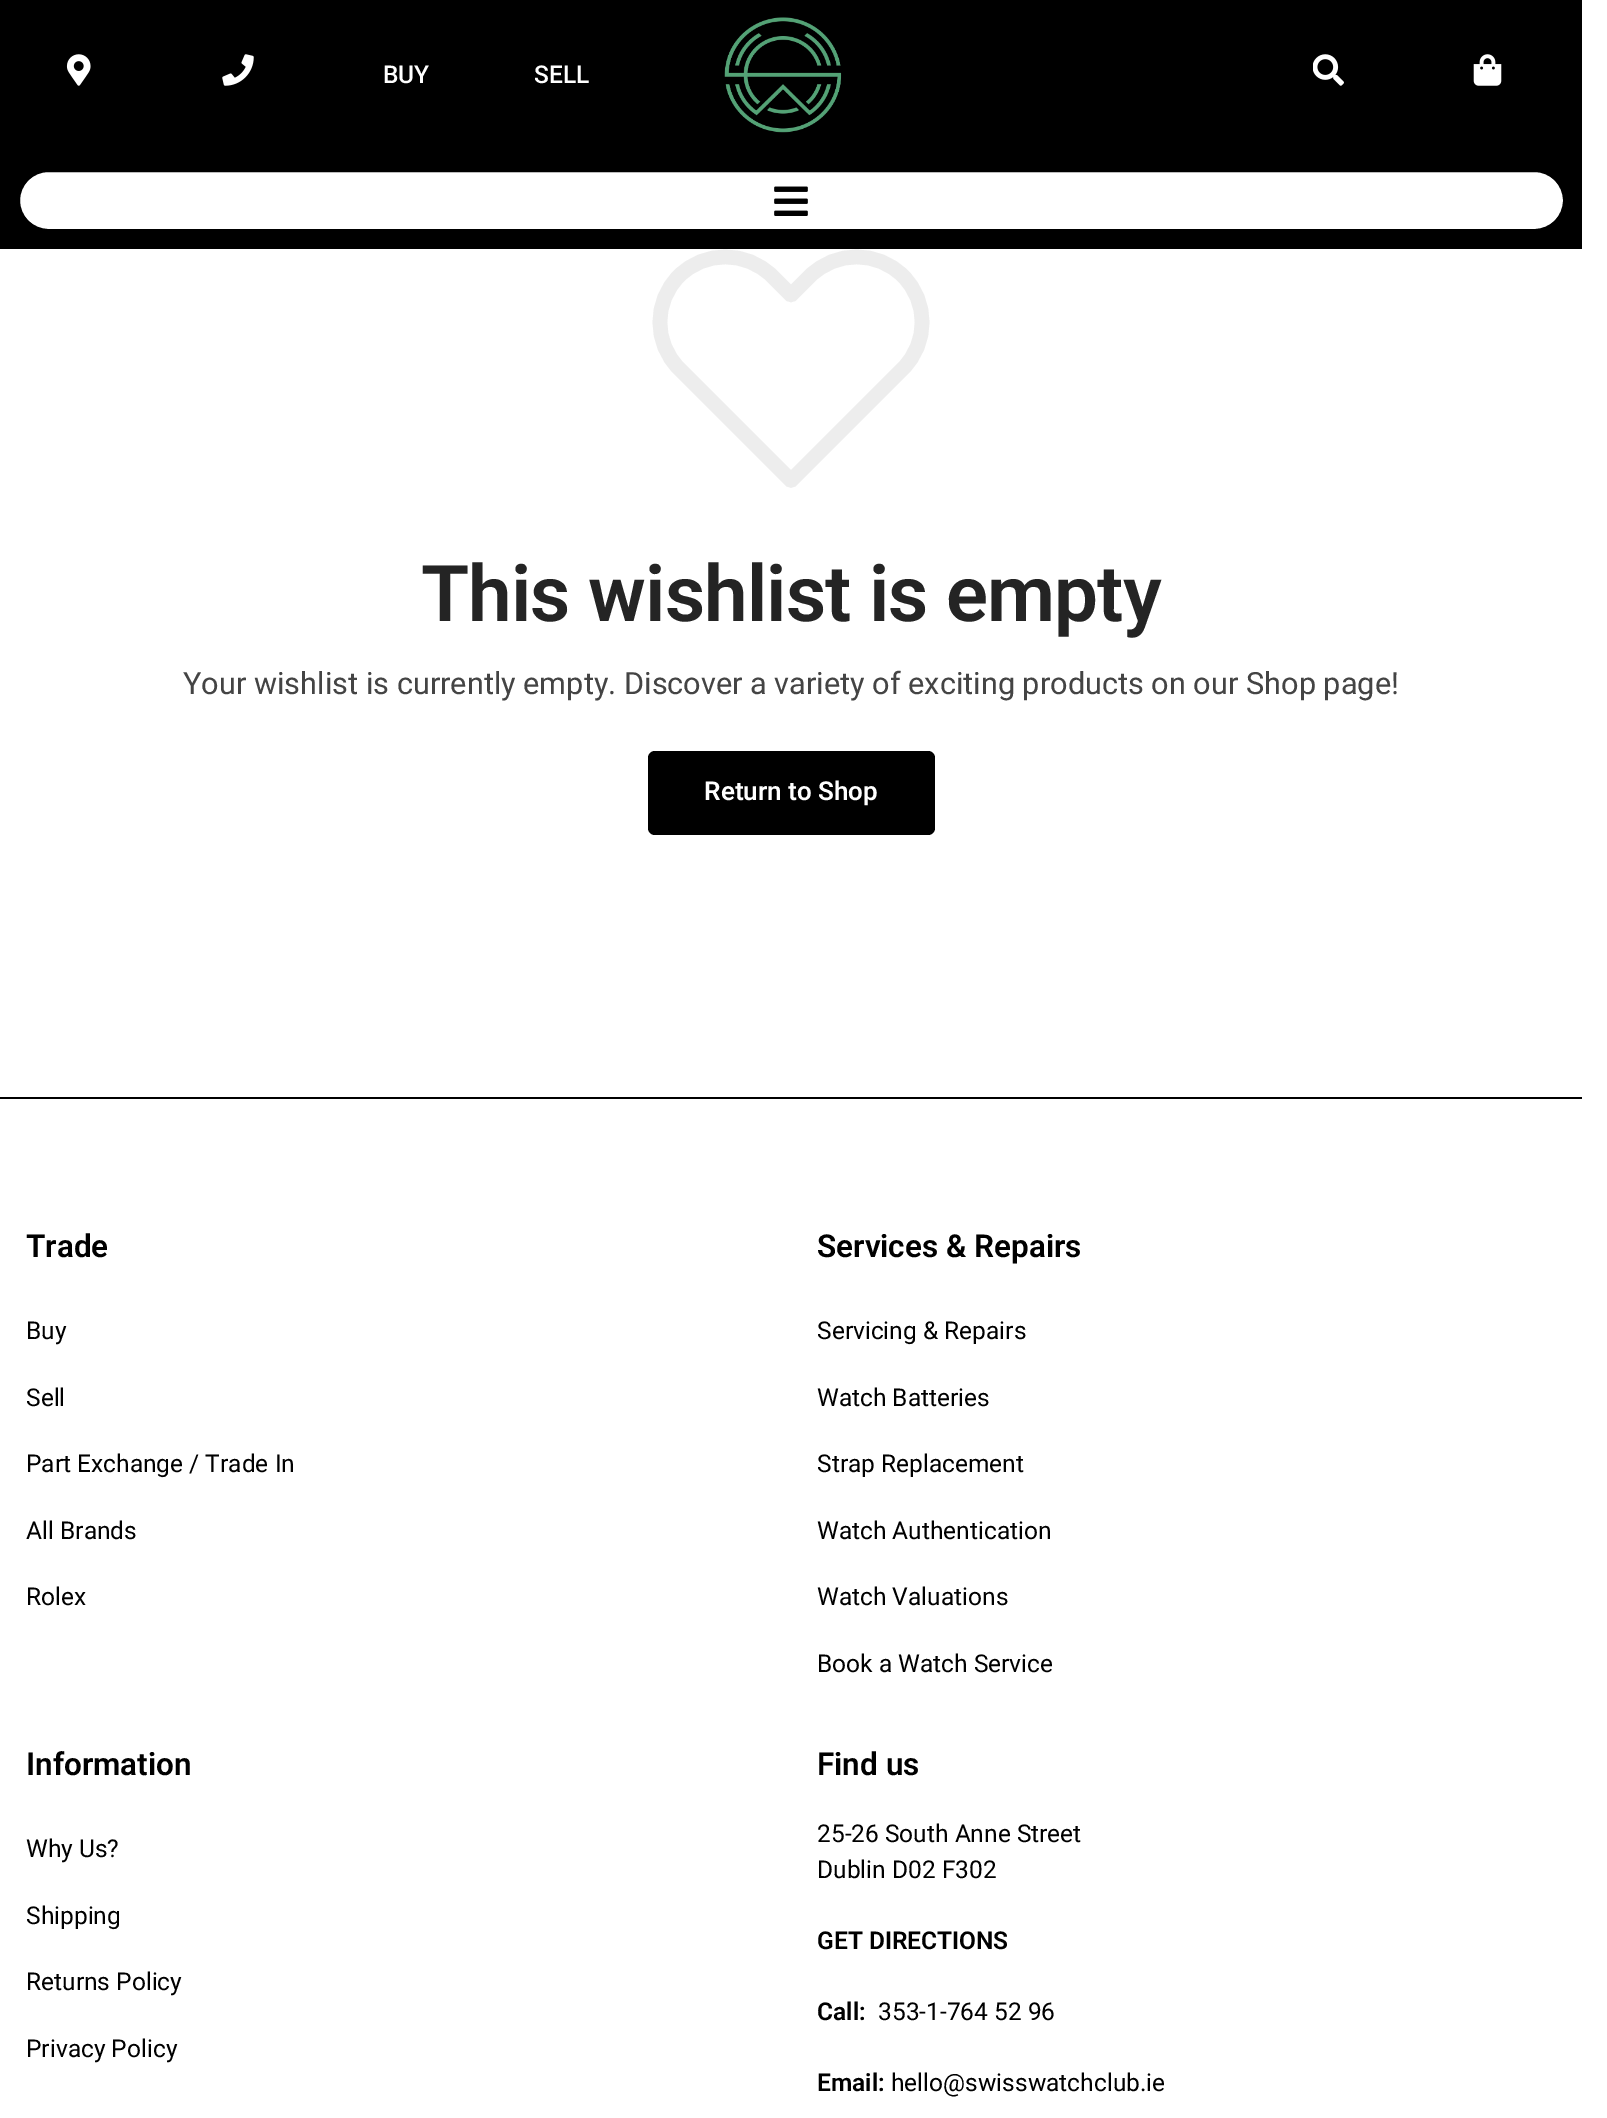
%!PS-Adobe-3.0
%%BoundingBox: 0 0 1607 2118
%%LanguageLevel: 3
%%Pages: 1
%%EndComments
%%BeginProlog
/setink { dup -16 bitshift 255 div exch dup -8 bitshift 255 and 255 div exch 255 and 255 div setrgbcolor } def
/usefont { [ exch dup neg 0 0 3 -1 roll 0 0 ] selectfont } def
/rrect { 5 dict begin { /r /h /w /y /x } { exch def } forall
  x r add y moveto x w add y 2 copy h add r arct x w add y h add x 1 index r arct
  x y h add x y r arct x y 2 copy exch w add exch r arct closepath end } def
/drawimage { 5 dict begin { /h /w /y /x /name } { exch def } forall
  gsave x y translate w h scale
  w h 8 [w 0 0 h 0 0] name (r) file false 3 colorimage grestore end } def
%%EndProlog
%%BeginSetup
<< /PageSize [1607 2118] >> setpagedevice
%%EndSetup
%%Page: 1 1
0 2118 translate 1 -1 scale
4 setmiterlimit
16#FFFFFF setink
0 0 1607 2118 rectfill
16#000000 setink
0 0 1582 249 rectfill
(img1.raw) 66 54 25 32 drawimage
(img2.raw) 222 54 32 32 drawimage
/Roboto-Medium 24.5 usefont
16#FFFFFF setink
383 83 moveto (BUY) show
534 83 moveto (SELL) show
(img3.raw) 724 17 118 116 drawimage
(img4.raw) 1313 54 31 32 drawimage
(img5.raw) 1473 54 29 32 drawimage
19 171 1545 59 29.5 rrect gsave fill grestore
16#000000 setink
2 setlinewidth
stroke
(img6.raw) 774 186 34 30 drawimage
16#EDEDED setink
14.6 setlinewidth
1 setlinecap
1 setlinejoin
679 276 moveto 653.5 301.5 653.5 343 679 368.5 curveto 791 480.5 lineto 903 368.5 lineto 928.5 343 928.5 301.5 903 276 curveto 877.5 250.5 836 250.5 810 276 curveto 791 295 lineto 772 276 lineto 746 250.5 704.5 250.5 679 276 curveto closepath stroke
/Roboto-SemiBold 78.25 usefont
16#242424 setink
421 621 moveto -0.9 0 (This wishlist is empty) ashow
/Roboto-Regular 30.7 usefont
16#444444 setink
183 694 moveto (Your wishlist is currently empty. Discover a variety of exciting products on our Shop page!) show
16#000000 setink
648 751 287 84 7 rrect fill
/Roboto-SemiBold 26 usefont
16#FFFFFF setink
704 800 moveto (Return to Shop) show
16#000000 setink
0 1097 1582 2 rectfill
/Roboto-SemiBold 31.5 usefont
26 1257 moveto (Trade) show
/Roboto-Regular 24.5 usefont
[
    [(Buy) 26 1339]
    [(Sell) 26 1406]
    [(Part Exchange / Trade In) 26 1472]
    [(All Brands) 26 1539]
    [(Rolex) 26 1605]
] { aload pop moveto show } forall
/Roboto-SemiBold 31.5 usefont
817 1257 moveto (Services & Repairs) show
/Roboto-Regular 24.5 usefont
[
    [(Servicing & Repairs) 817 1339]
    [(Watch Batteries) 817 1406]
    [(Strap Replacement) 817 1472]
    [(Watch Authentication) 817 1539]
    [(Watch Valuations) 817 1605]
    [(Book a Watch Service) 817 1672]
] { aload pop moveto show } forall
/Roboto-SemiBold 31.5 usefont
26 1775 moveto (Information) show
/Roboto-Regular 24.5 usefont
[
    [(Why Us?) 26 1857]
    [(Shipping) 26 1924]
    [(Returns Policy) 26 1990]
    [(Privacy Policy) 26 2057]
] { aload pop moveto show } forall
/Roboto-SemiBold 31.5 usefont
817 1775 moveto (Find us) show
/Roboto-Regular 24.5 usefont
817 1842 moveto (25-26 South Anne Street) show
817 1878 moveto (Dublin D02 F302) show
/Roboto-SemiBold 24.5 usefont
817 1949 moveto (GET DIRECTIONS) show
817 2020 moveto (Call:) show
/Roboto-Regular 24.5 usefont
878 2020 moveto (353-1-764 52 96) show
/Roboto-SemiBold 24.5 usefont
817 2091 moveto (Email:) show
/Roboto-Regular 24.5 usefont
891 2091 moveto (hello@swisswatchclub.ie) show
showpage
%%EOF
